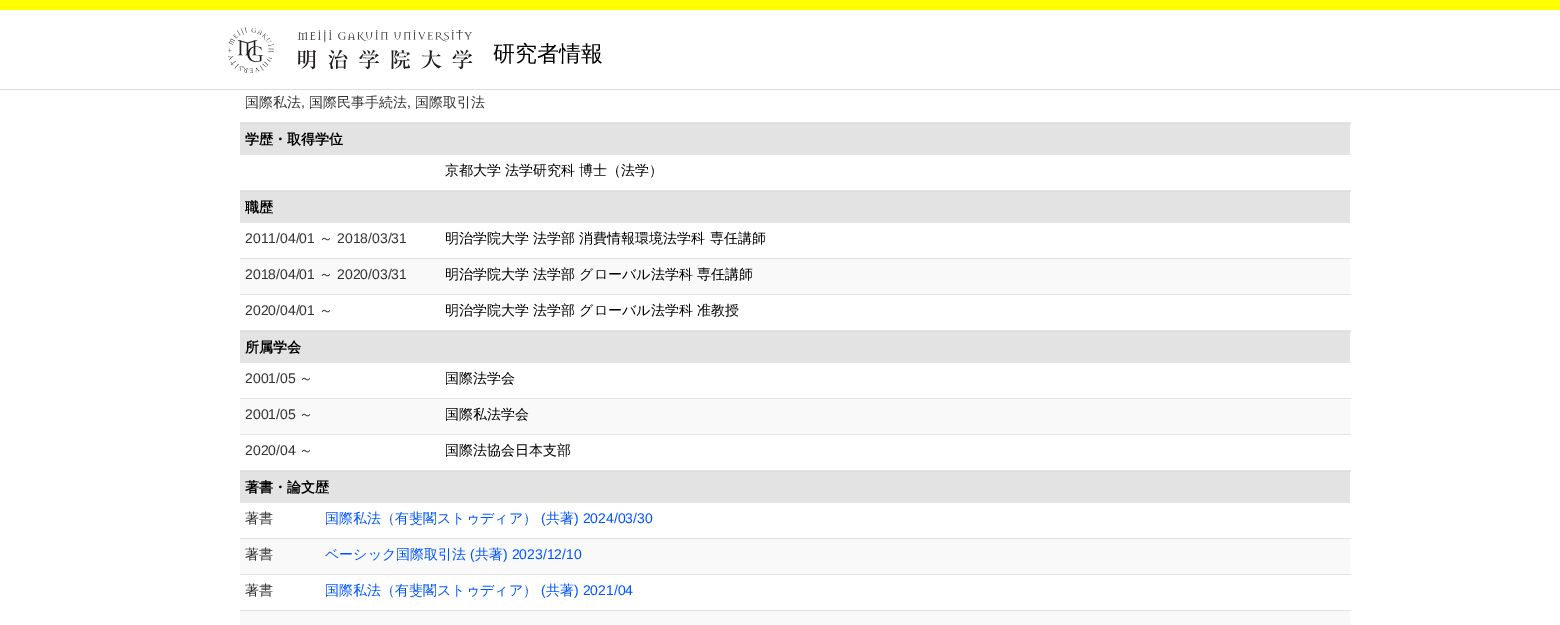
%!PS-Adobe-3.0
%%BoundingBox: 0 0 1560 625
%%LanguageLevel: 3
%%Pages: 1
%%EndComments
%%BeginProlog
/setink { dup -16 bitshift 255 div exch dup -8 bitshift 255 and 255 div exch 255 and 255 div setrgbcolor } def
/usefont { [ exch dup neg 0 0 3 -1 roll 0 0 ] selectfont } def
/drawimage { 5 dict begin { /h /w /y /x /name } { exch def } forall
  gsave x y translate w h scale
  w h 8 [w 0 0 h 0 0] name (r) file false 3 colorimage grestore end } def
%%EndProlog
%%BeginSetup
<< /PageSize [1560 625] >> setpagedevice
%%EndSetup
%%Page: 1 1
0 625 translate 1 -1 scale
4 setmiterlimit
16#FFFFFF setink
0 0 1560 625 rectfill
16#FFFF00 setink
0 0 1560 10 rectfill
16#DCDCDC setink
0 89 1560 1 rectfill
(img1.raw) 227 27 246 46 drawimage
/WenQuanYiZenHei-Medium 22 usefont
16#000000 setink
493 61 moveto (研究者情報) show
16#E5E5E5 setink
240 122 1111 1 rectfill
/WenQuanYiZenHei-Medium 14 usefont
16#333333 setink
245 107 moveto (国際私法) show
/LiberationSans-Regular 14 usefont
301 107 moveto (,) show
/WenQuanYiZenHei-Medium 14 usefont
309 107 moveto (国際民事手続法) show
/LiberationSans-Regular 14 usefont
407 107 moveto (,) show
/WenQuanYiZenHei-Medium 14 usefont
415 107 moveto (国際取引法) show
[
    [240 124 1110 30 16#E3E3E3]
    [240 123 1111 1 16#DDDDDD]
    [240 154 1111 1 16#E5E5E5]
] { aload pop setink rectfill } forall
/WenQuanYiZenHei-Bold 14 usefont
16#000000 setink
245 144 moveto (学歴・取得学位) show
16#E5E5E5 setink
240 190 1111 1 rectfill
/WenQuanYiZenHei-Medium 14 usefont
16#000000 setink
445 175 moveto (京都大学 法学研究科 博士（法学）) show
[
    [240 192 1110 30 16#E3E3E3]
    [240 191 1111 1 16#DDDDDD]
    [240 222 1111 1 16#E5E5E5]
] { aload pop setink rectfill } forall
/WenQuanYiZenHei-Bold 14 usefont
16#000000 setink
245 212 moveto (職歴) show
/LiberationSans-Regular 14 usefont
16#333333 setink
245 243 moveto (2011/04/01) show
/WenQuanYiZenHei-Medium 14 usefont
319 243 moveto (～) show
/LiberationSans-Regular 14 usefont
337 243 moveto (2018/03/31) show
16#E5E5E5 setink
240 258 1111 1 rectfill
/WenQuanYiZenHei-Medium 14 usefont
16#000000 setink
445 243 moveto (明治学院大学 法学部 消費情報環境法学科 専任講師) show
16#F9F9F9 setink
240 259 1110 35 rectfill
/LiberationSans-Regular 14 usefont
16#333333 setink
245 279 moveto (2018/04/01) show
/WenQuanYiZenHei-Medium 14 usefont
319 279 moveto (～) show
/LiberationSans-Regular 14 usefont
337 279 moveto (2020/03/31) show
16#E5E5E5 setink
240 294 1111 1 rectfill
/WenQuanYiZenHei-Medium 14 usefont
16#000000 setink
445 279 moveto (明治学院大学 法学部 グローバル法学科 専任講師) show
/LiberationSans-Regular 14 usefont
16#333333 setink
245 315 moveto (2020/04/01) show
/WenQuanYiZenHei-Medium 14 usefont
319 315 moveto (～) show
16#E5E5E5 setink
240 330 1111 1 rectfill
16#000000 setink
445 315 moveto (明治学院大学 法学部 グローバル法学科 准教授) show
[
    [240 332 1110 30 16#E3E3E3]
    [240 331 1111 1 16#DDDDDD]
    [240 362 1111 1 16#E5E5E5]
] { aload pop setink rectfill } forall
/WenQuanYiZenHei-Bold 14 usefont
16#000000 setink
245 352 moveto (所属学会) show
/LiberationSans-Regular 14 usefont
16#333333 setink
245 383 moveto (2001/05) show
/WenQuanYiZenHei-Medium 14 usefont
299 383 moveto (～) show
16#E5E5E5 setink
240 398 1111 1 rectfill
16#000000 setink
445 383 moveto (国際法学会) show
16#F9F9F9 setink
240 399 1110 35 rectfill
/LiberationSans-Regular 14 usefont
16#333333 setink
245 419 moveto (2001/05) show
/WenQuanYiZenHei-Medium 14 usefont
299 419 moveto (～) show
16#E5E5E5 setink
240 434 1111 1 rectfill
16#000000 setink
445 419 moveto (国際私法学会) show
/LiberationSans-Regular 14 usefont
16#333333 setink
245 455 moveto (2020/04) show
/WenQuanYiZenHei-Medium 14 usefont
299 455 moveto (～) show
16#E5E5E5 setink
240 470 1111 1 rectfill
16#000000 setink
445 455 moveto (国際法協会日本支部) show
[
    [240 472 1110 30 16#E3E3E3]
    [240 471 1111 1 16#DDDDDD]
    [240 502 1111 1 16#E5E5E5]
] { aload pop setink rectfill } forall
/WenQuanYiZenHei-Bold 14 usefont
16#000000 setink
245 492 moveto (著書・論文歴) show
/WenQuanYiZenHei-Medium 14 usefont
16#333333 setink
245 523 moveto (著書) show
16#E5E5E5 setink
240 538 1111 1 rectfill
16#0054FF setink
325 523 moveto (国際私法（有斐閣ストゥディア）) show
/LiberationSans-Regular 14 usefont
541 523 moveto (\() show
/WenQuanYiZenHei-Medium 14 usefont
546 523 moveto (共著) show
/LiberationSans-Regular 14 usefont
574 523 moveto (\) 2024/03/30) show
16#F9F9F9 setink
240 539 1110 35 rectfill
/WenQuanYiZenHei-Medium 14 usefont
16#333333 setink
245 559 moveto (著書) show
16#E5E5E5 setink
240 574 1111 1 rectfill
16#0054FF setink
325 559 moveto (ベーシック国際取引法) show
/LiberationSans-Regular 14 usefont
470 559 moveto (\() show
/WenQuanYiZenHei-Medium 14 usefont
475 559 moveto (共著) show
/LiberationSans-Regular 14 usefont
503 559 moveto (\) 2023/12/10) show
/WenQuanYiZenHei-Medium 14 usefont
16#333333 setink
245 595 moveto (著書) show
16#E5E5E5 setink
240 610 1111 1 rectfill
16#0054FF setink
325 595 moveto (国際私法（有斐閣ストゥディア）) show
/LiberationSans-Regular 14 usefont
541 595 moveto (\() show
/WenQuanYiZenHei-Medium 14 usefont
546 595 moveto (共著) show
/LiberationSans-Regular 14 usefont
574 595 moveto (\) 2021/04) show
16#F9F9F9 setink
240 611 1110 14 rectfill
showpage
%%EOF
